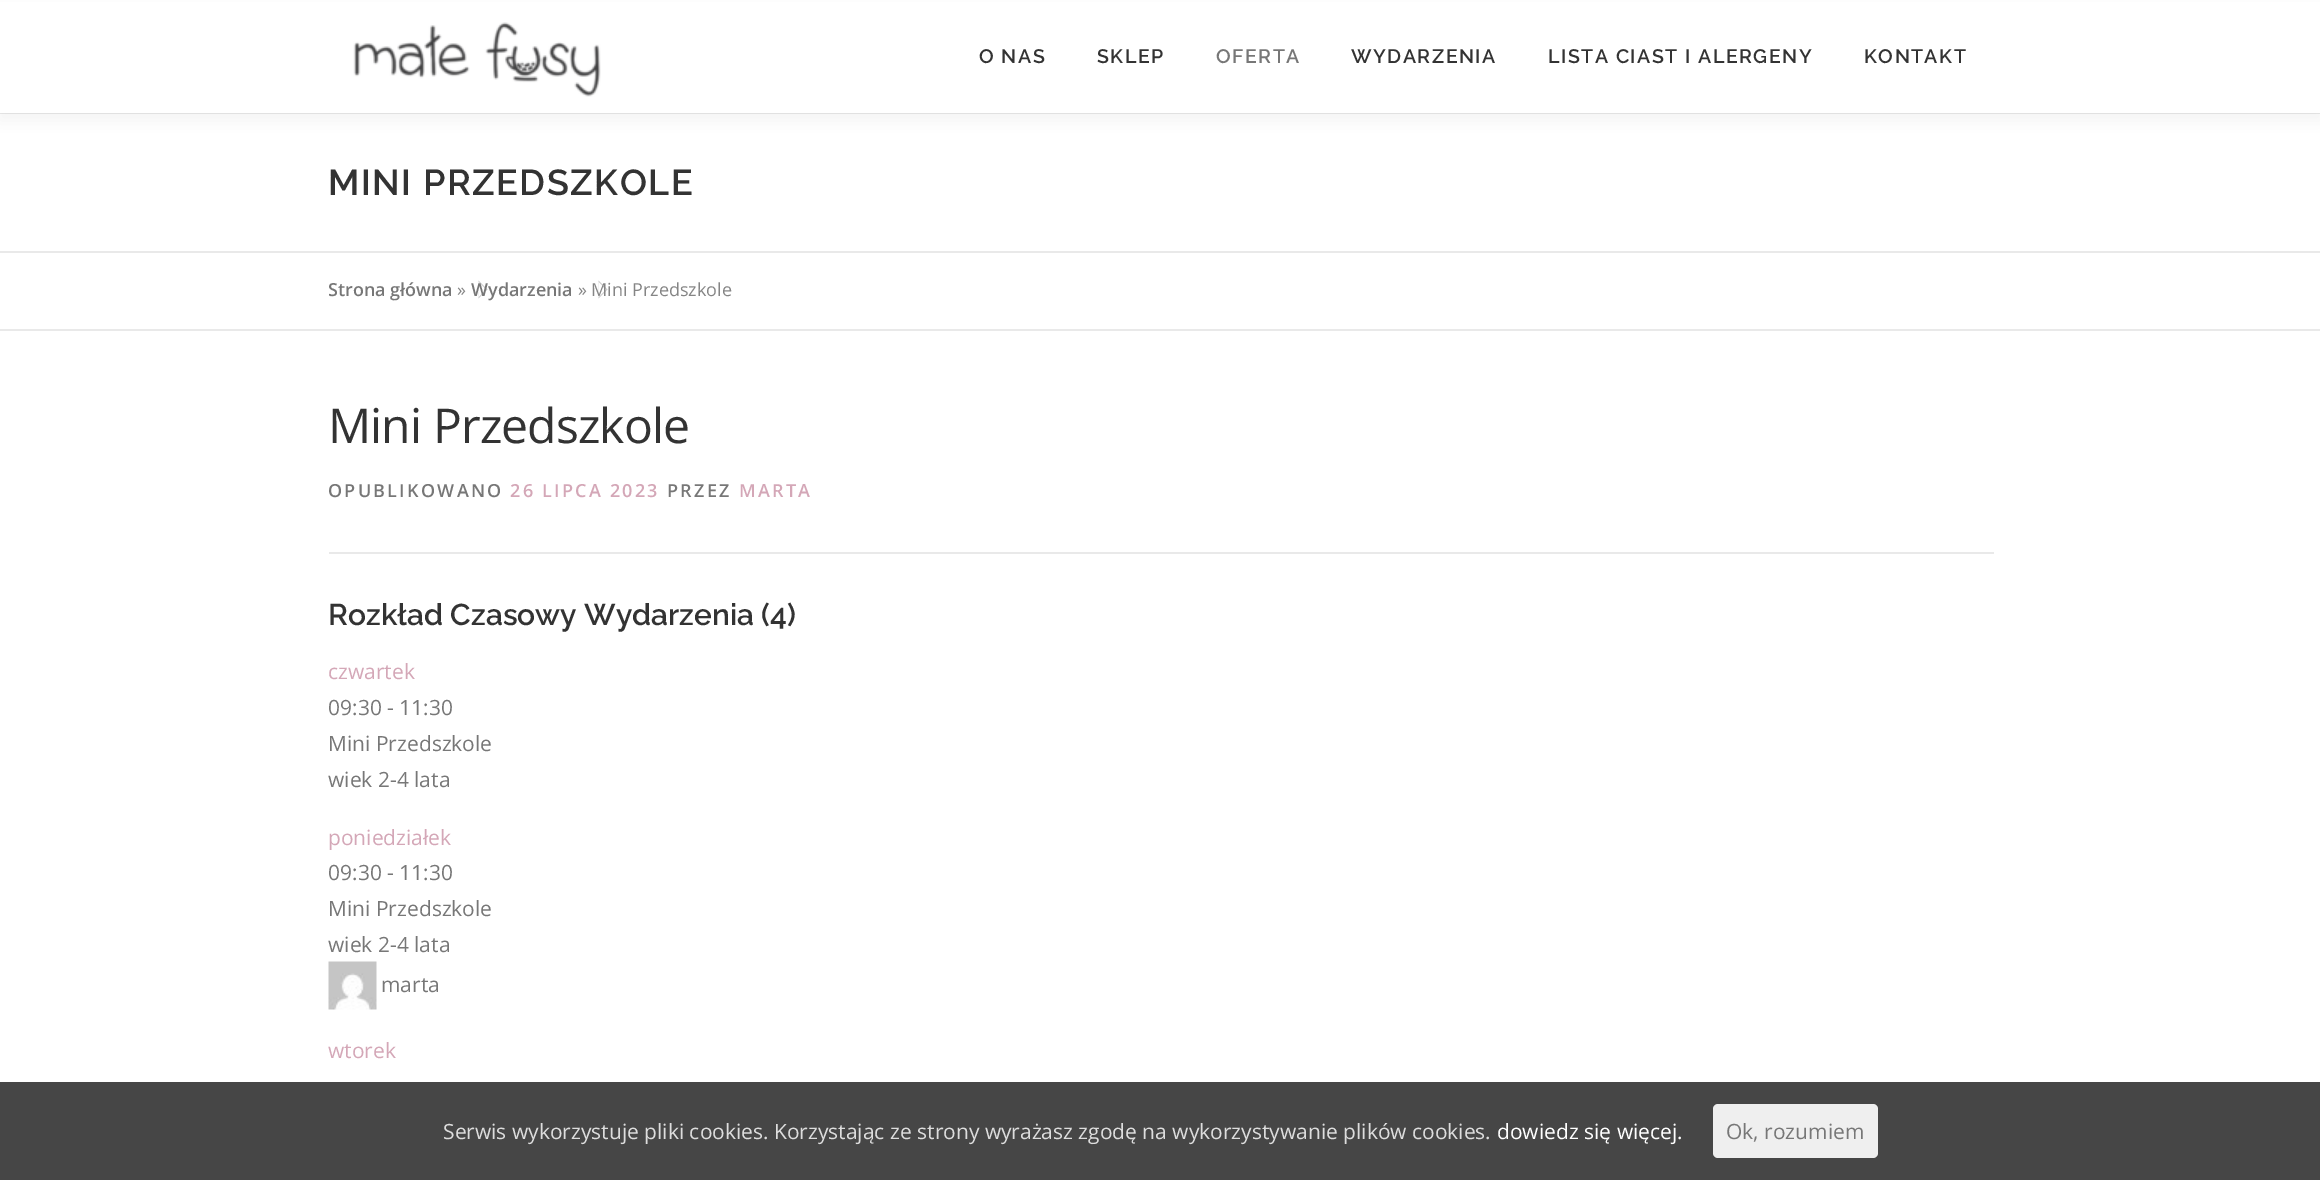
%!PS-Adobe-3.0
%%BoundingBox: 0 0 2320 1180
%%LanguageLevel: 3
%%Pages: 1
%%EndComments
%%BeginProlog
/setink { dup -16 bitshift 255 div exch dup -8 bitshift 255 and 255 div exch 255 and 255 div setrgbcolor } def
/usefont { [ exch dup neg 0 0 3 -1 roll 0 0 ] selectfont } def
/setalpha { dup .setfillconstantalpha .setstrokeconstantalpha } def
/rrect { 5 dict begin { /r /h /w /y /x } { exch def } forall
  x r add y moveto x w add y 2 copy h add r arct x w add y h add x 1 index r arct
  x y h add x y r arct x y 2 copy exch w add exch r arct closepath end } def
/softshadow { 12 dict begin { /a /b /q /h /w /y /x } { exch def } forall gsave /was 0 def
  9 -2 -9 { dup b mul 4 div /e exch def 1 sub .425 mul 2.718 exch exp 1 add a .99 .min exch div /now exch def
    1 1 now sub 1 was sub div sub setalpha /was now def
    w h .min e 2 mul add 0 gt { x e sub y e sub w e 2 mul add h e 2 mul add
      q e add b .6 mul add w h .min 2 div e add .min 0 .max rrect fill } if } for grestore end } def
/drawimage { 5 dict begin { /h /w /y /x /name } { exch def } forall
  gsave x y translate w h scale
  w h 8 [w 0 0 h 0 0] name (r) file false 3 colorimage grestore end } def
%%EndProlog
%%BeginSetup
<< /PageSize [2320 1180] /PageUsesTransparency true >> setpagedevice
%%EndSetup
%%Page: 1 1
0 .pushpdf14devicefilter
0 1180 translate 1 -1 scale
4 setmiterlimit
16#FFFFFF setink
0 0 2320 1180 rectfill
16#E9E9E9 setink
0 113 2320 1 rectfill
16#323232 setink
0 8 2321 112 0 7.5 0.06 softshadow
16#FFFFFF setink
0 2 2320 111 rectfill
(img1.raw) 353 22 248 75 drawimage
/Raleway-SemiBold 19.5 usefont
16#333333 setink
979 63 moveto 1.5 0 (O NAS) ashow
1097 63 moveto 1.5 0 (SKLEP) ashow
16#777777 setink
1216 63 moveto 1.5 0 (OFERTA) ashow
16#333333 setink
1351 63 moveto 1.5 0 (WYDARZENIA) ashow
1548 63 moveto 1.5 0 (LISTA CIAST I ALERGENY) ashow
1864 63 moveto 1.5 0 (KONTAKT) ashow
16#E9E9E9 setink
0 251 2320 2 rectfill
/Raleway-SemiBold 36 usefont
16#333333 setink
328 195 moveto 1.5 0 (MINI PRZEDSZKOLE) ashow
16#E9E9E9 setink
0 329 2320 2 rectfill
/OpenSans-SemiBold 18 usefont
16#777777 setink
328 296 moveto (Strona główna) show
16#CCCCCC setink
478.5 298.5 moveto 478.5 280.5 lineto 487.5 289.5 lineto closepath fill
16#FFFFFF setink
478.5 297 moveto 478.5 282 lineto 486 289.5 lineto closepath fill
/OpenSans-Regular 18 usefont
16#858585 setink
457 296 moveto (») show
/OpenSans-SemiBold 18 usefont
16#777777 setink
471 296 moveto (Wydarzenia) show
16#CCCCCC setink
598.5 298.5 moveto 598.5 280.5 lineto 607.5 289.5 lineto closepath fill
16#FFFFFF setink
598.5 297 moveto 598.5 282 lineto 606 289.5 lineto closepath fill
/OpenSans-Regular 18 usefont
16#858585 setink
578 296 moveto (») show
591 296 moveto (Mini Przedszkole) show
/OpenSans-Regular 48 usefont
16#333333 setink
328 443 moveto -0.9 0 (Mini Przedszkole) ashow
16#E9E9E9 setink
329 552 1665 2 rectfill
/OpenSans-SemiBold 18 usefont
16#777777 setink
328 497 moveto 2.25 0 (OPUBLIKOWANO) ashow
16#D4A7B7 setink
510 497 moveto 2.25 0 (26 LIPCA 2023) ashow
16#777777 setink
667 497 moveto 2.25 0 (PRZEZ) ashow
16#D4A7B7 setink
739 497 moveto 2.25 0 (MARTA) ashow
/Raleway-SemiBold 30 usefont
16#333333 setink
328 625 moveto (Rozkład Czasowy Wydarzenia \(4\)) show
/OpenSans-Regular 21 usefont
16#D4A7B7 setink
328 679 moveto (czwartek) show
16#777777 setink
[
    [(09:30 - 11:30) 328 715]
    [(Mini Przedszkole) 328 751]
    [(wiek 2-4 lata) 328 787]
] { aload pop moveto show } forall
16#D4A7B7 setink
328 845 moveto (poniedziałek) show
16#777777 setink
[
    [(09:30 - 11:30) 328 880]
    [(Mini Przedszkole) 328 916]
    [(wiek 2-4 lata) 328 952]
] { aload pop moveto show } forall
(img2.raw) 328 961 49 49 drawimage
381 992 moveto (marta) show
16#D4A7B7 setink
328 1058 moveto (wtorek) show
16#464646 setink
0 1082 2320 98 rectfill
16#DDDDDD setink
443 1139 moveto (Serwis wykorzystuje pliki cookies. Korzystając ze strony wyrażasz zgodę na wykorzystywanie plików cookies.) show
16#FFFFFF setink
1497 1139 moveto (dowiedz się więcej.) show
16#EFEFEF setink
1713 1104 165 54 5 rrect fill
16#777777 setink
1726 1139 moveto (Ok, rozumiem) show
.poppdf14devicefilter showpage
%%EOF
